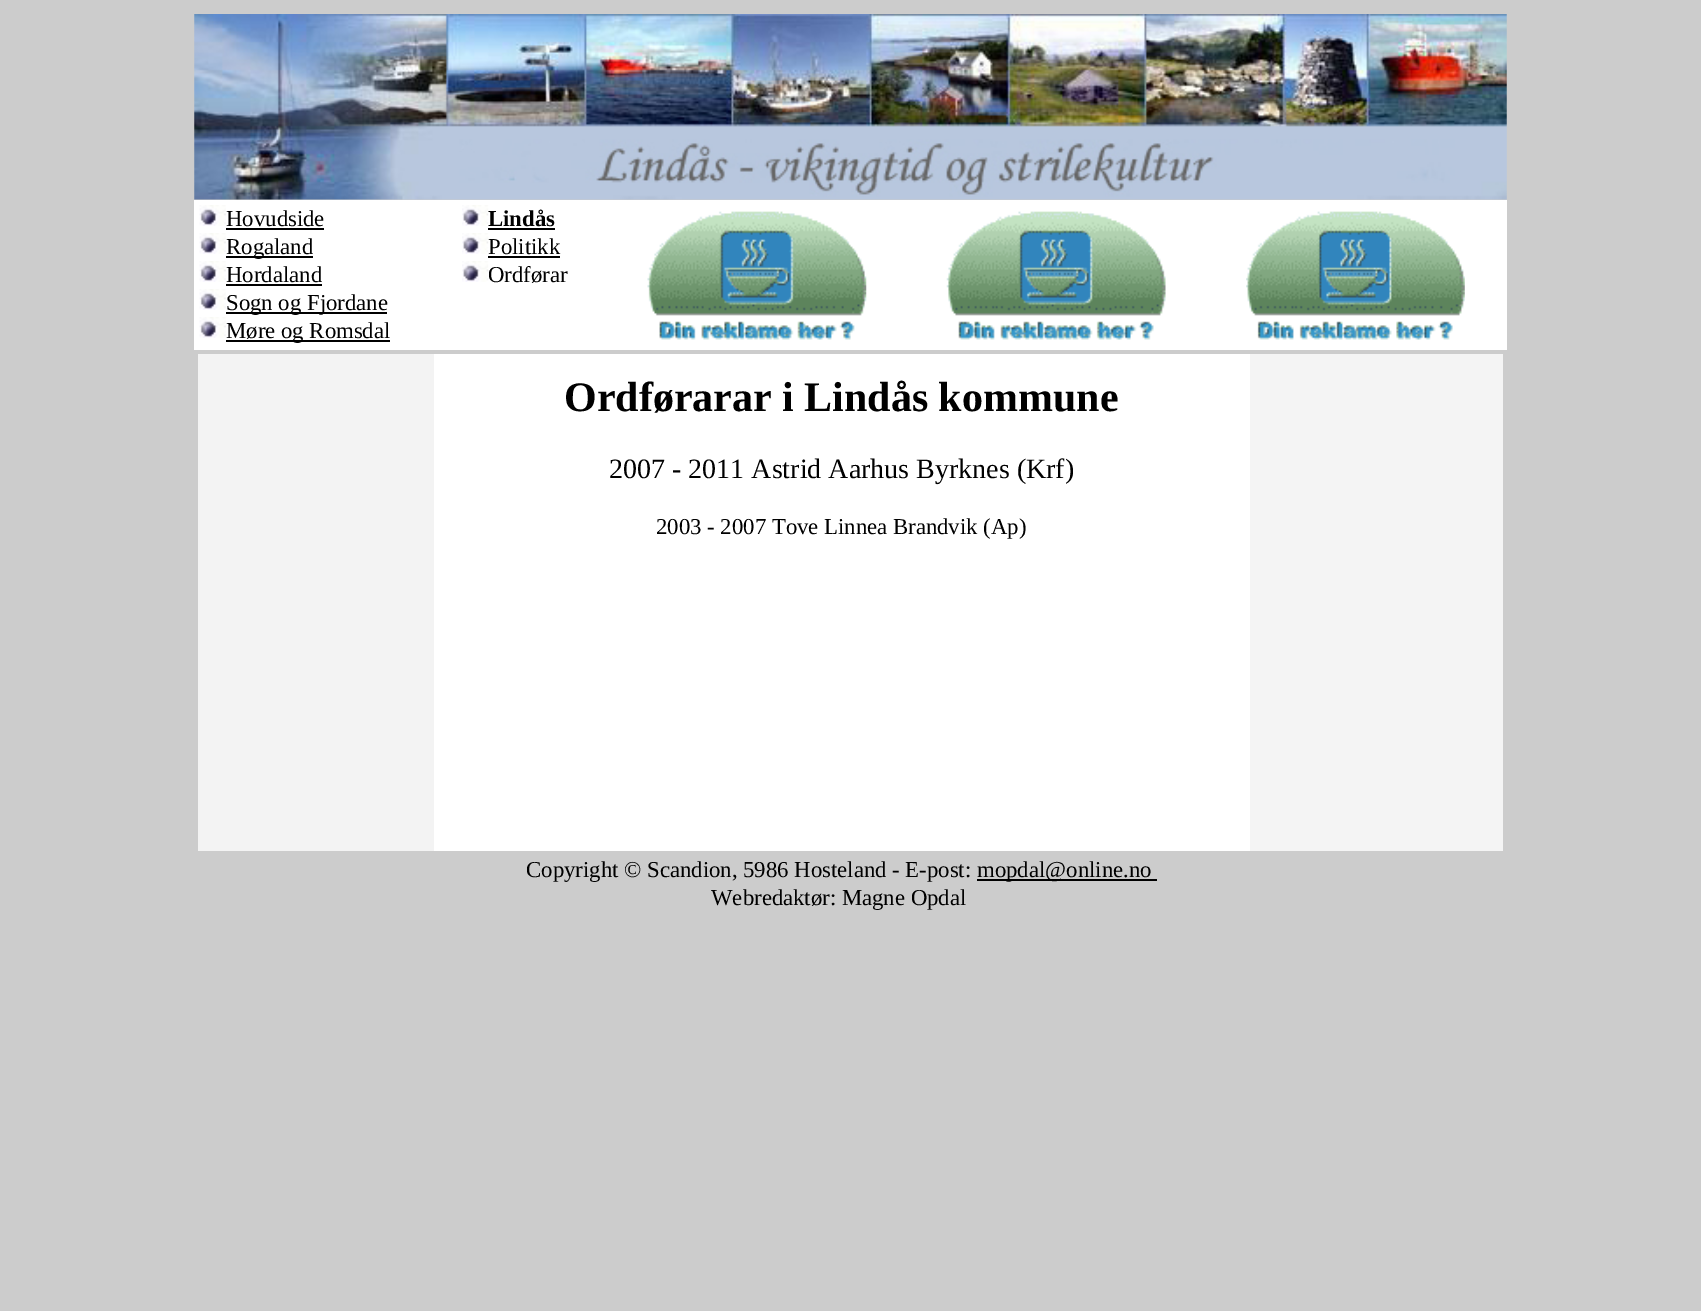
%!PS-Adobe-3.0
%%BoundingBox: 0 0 1701 1311
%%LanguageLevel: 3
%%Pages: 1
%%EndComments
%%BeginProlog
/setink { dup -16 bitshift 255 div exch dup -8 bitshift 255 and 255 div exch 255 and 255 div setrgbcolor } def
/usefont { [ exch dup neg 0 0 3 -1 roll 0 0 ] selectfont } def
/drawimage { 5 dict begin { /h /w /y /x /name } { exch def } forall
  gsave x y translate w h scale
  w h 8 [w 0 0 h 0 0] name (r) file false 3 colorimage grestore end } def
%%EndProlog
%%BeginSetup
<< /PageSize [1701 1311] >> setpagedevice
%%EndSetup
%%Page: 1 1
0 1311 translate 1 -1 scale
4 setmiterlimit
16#CCCCCC setink
0 0 1701 1311 rectfill
(img1.raw) 194 14 1313 186 drawimage
16#FFFFFF setink
194 200 1313 150 rectfill
(img2.raw) 199 205 27 21 drawimage
/LiberationSerif-Regular 22.75 usefont
16#000000 setink
226 226 moveto (Hovudside) show
226 228 98 2 rectfill
(img2.raw) 199 233 27 21 drawimage
226 256 87 2 rectfill
226 254 moveto (Rogaland) show
(img2.raw) 199 261 27 21 drawimage
226 282 moveto (Hordaland) show
226 284 96 2 rectfill
(img2.raw) 199 289 27 21 drawimage
226 312 161 2 rectfill
226 310 moveto (Sogn og Fjordane) show
(img2.raw) 199 317 27 21 drawimage
226 340 164 2 rectfill
226 338 moveto (Møre og Romsdal) show
(img3.raw) 462 205 27 21 drawimage
/LiberationSerif-Bold 22.75 usefont
488 226 moveto (Lindås) show
488 228 67 2 rectfill
(img3.raw) 462 233 27 21 drawimage
/LiberationSerif-Regular 22.75 usefont
488 254 moveto (Politikk) show
488 256 72 2 rectfill
(img3.raw) 462 261 27 21 drawimage
488 282 moveto (Ordførar) show
(img4.raw) 647 211 220 129 drawimage
(img5.raw) 946 211 220 129 drawimage
(img6.raw) 1246 211 219 129 drawimage
16#FFFFFF setink
434 354 816 497 rectfill
16#F3F3F3 setink
198 354 236 497 rectfill
/LiberationSerif-Bold 42 usefont
16#000000 setink
564 411 moveto (Ordførarar i Lindås kommune) show
/LiberationSerif-Regular 28 usefont
609 478 moveto (2007 - 2011 Astrid Aarhus Byrknes \(Krf\)) show
/LiberationSerif-Regular 22.75 usefont
656 534 moveto (2003 - 2007 Tove Linnea Brandvik \(Ap\)) show
16#F4F4F4 setink
1250 354 253 497 rectfill
16#000000 setink
526 877 moveto (Copyright © Scandion, 5986 Hosteland - E-post:) show
977 879 180 2 rectfill
977 877 moveto (mopdal@online.no) show
711 905 moveto (Webredaktør: Magne Opdal) show
showpage
%%EOF
